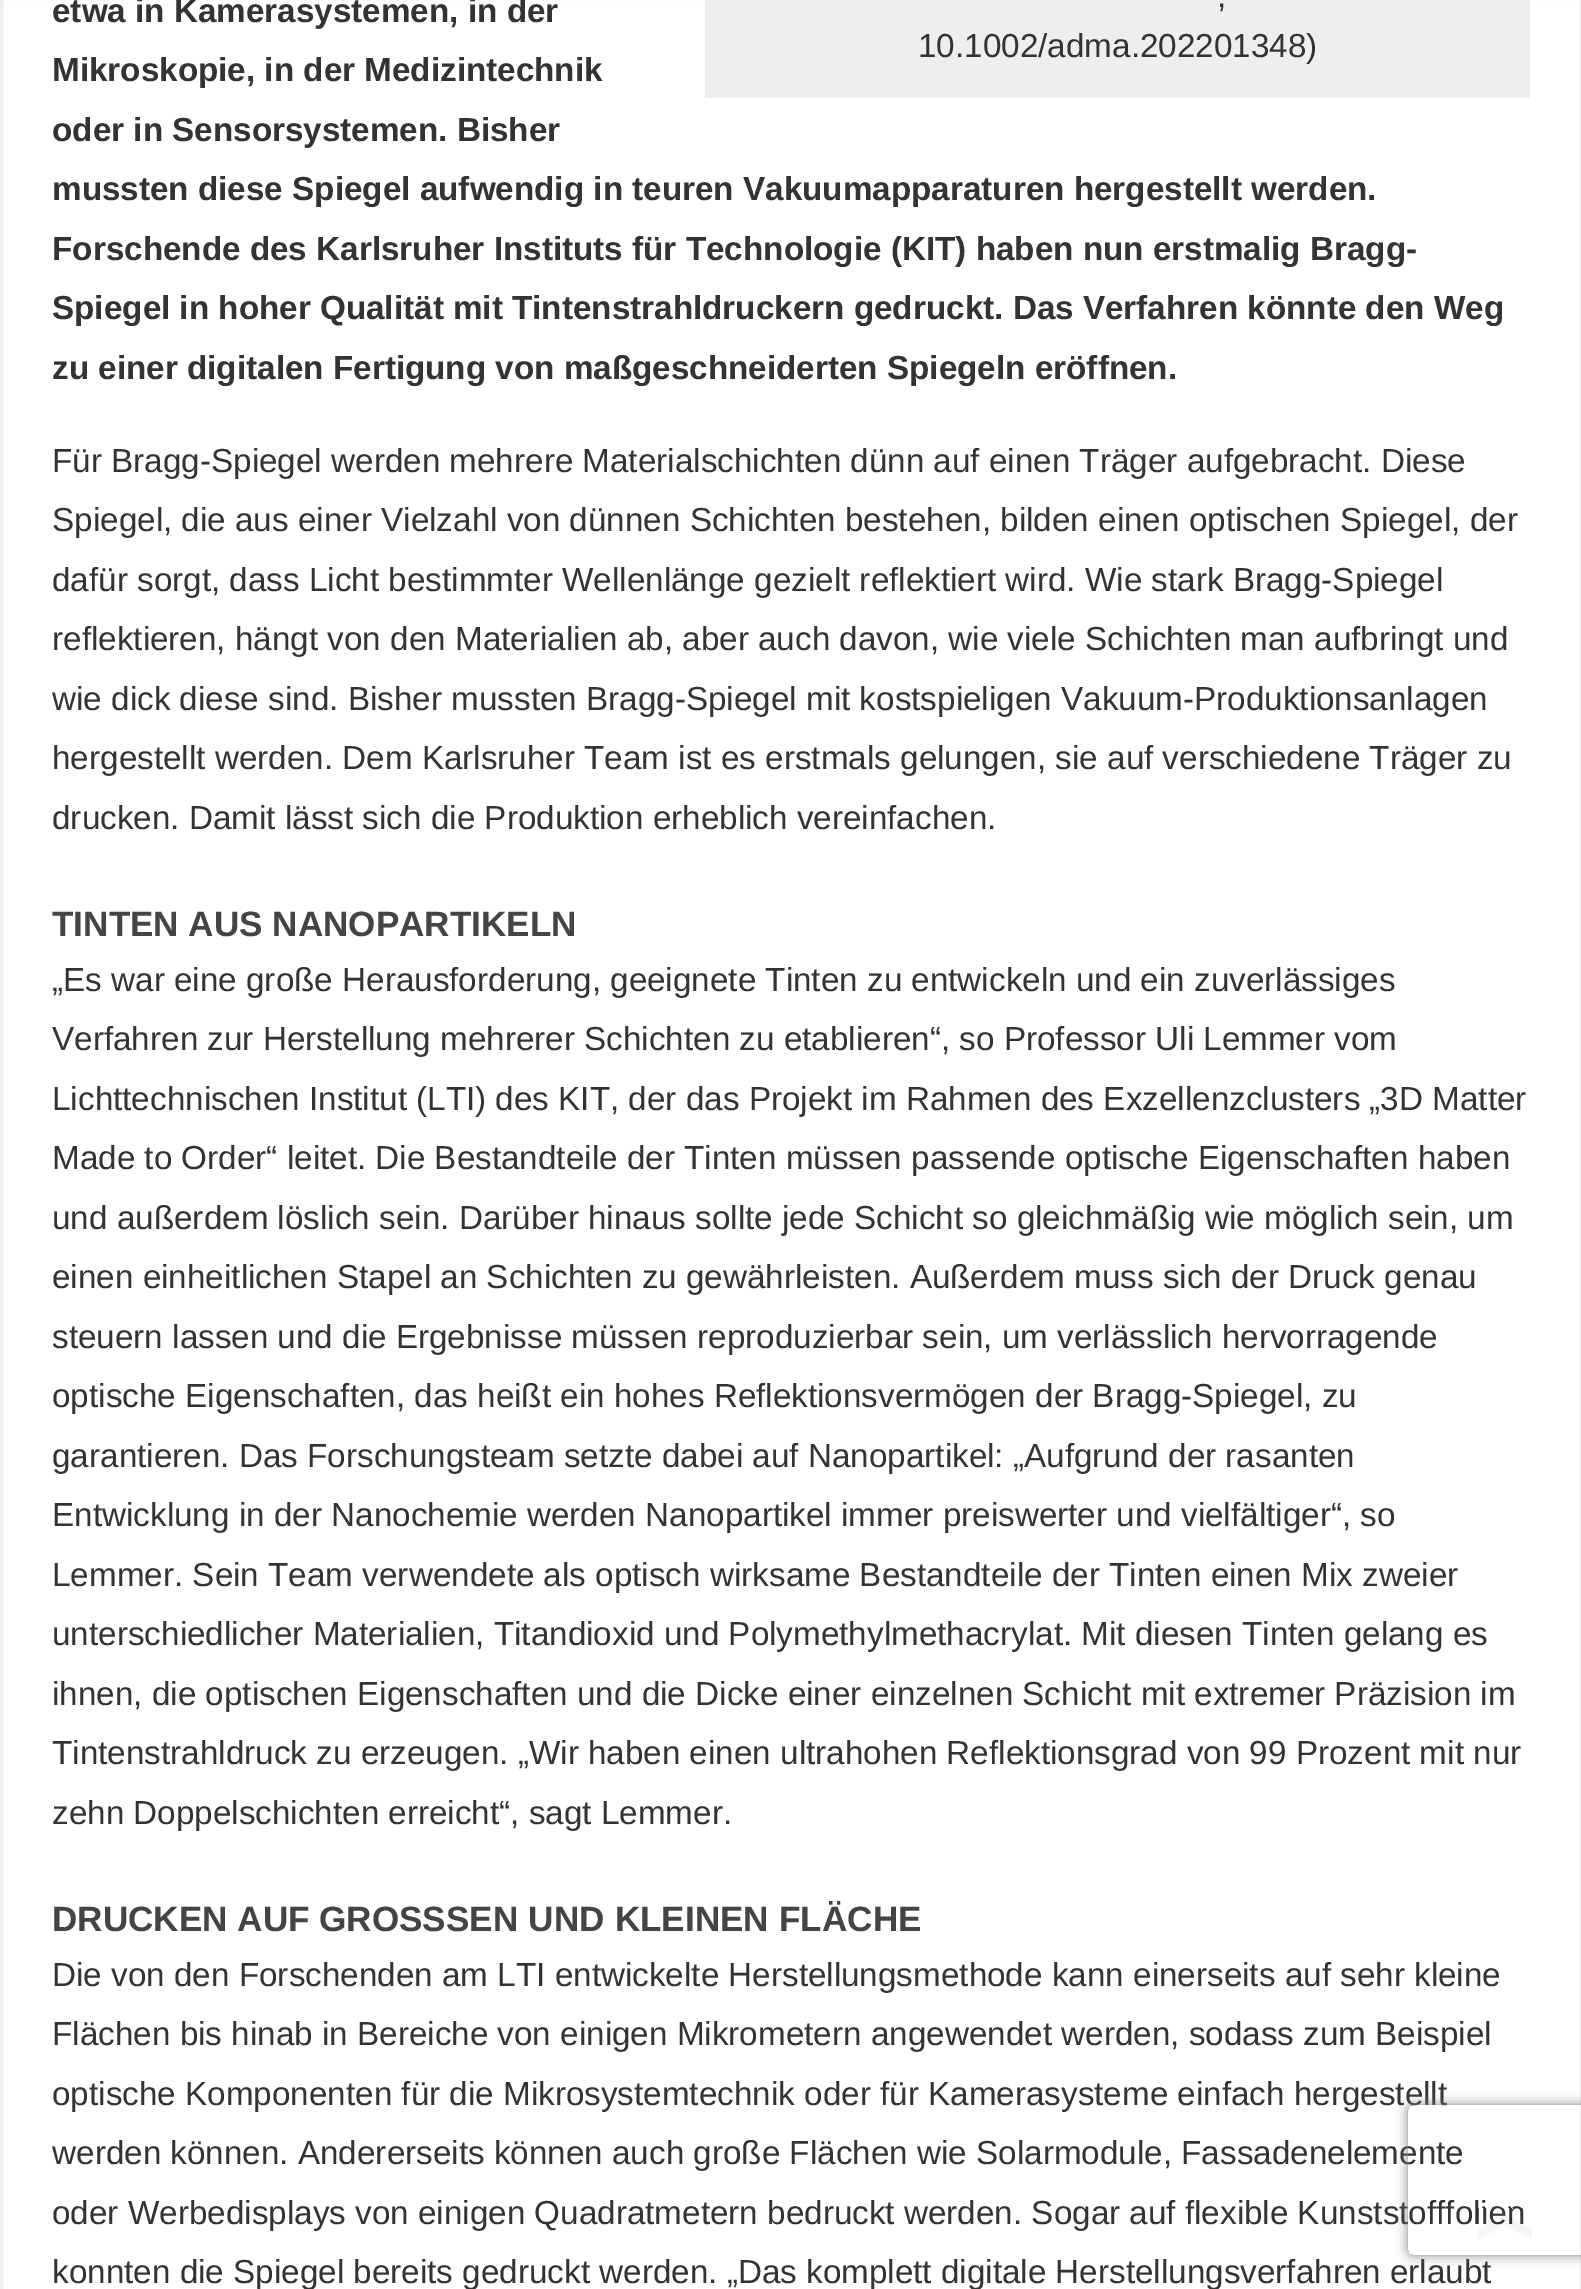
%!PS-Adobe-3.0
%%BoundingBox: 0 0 1581 2289
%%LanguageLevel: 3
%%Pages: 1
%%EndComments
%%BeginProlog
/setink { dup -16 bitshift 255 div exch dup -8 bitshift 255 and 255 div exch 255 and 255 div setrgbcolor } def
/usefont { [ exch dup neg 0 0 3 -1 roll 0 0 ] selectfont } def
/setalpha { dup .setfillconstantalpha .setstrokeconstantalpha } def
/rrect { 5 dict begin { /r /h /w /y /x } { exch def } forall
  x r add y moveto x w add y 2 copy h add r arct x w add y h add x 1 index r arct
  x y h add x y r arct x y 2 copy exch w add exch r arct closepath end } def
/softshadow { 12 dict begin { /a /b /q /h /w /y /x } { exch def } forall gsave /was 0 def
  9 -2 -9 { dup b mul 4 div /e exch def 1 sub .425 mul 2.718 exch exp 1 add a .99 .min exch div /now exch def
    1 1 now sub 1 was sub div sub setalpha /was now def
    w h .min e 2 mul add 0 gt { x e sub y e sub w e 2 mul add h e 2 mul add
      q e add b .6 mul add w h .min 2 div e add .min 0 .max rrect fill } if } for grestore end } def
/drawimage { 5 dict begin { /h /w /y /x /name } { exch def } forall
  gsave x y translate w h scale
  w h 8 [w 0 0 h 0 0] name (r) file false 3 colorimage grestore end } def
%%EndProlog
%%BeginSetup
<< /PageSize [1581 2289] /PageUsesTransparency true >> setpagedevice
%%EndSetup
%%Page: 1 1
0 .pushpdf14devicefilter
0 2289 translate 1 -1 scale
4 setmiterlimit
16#FFFFFF setink
0 0 1581 2289 rectfill
16#EEEEEE setink
3 setlinewidth
1.5 -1.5 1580 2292 rectstroke
/LiberationSans-Bold 33.25 usefont
16#333333 setink
[
    [(etwa in Kamerasystemen, in der) 52 22]
    [(Mikroskopie, in der Medizintechnik) 52 81]
    [(oder in Sensorsystemen. Bisher) 52 141]
    [(mussten diese Spiegel aufwendig in teuren Vakuumapparaturen hergestellt werden.) 52 200]
    [(Forschende des Karlsruher Instituts für Technologie \(KIT\) haben nun erstmalig Bragg-) 52 260]
    [(Spiegel in hoher Qualität mit Tintenstrahldruckern gedruckt. Das Verfahren könnte den Weg) 52 319]
    [(zu einer digitalen Fertigung von maßgeschneiderten Spiegeln eröffnen.) 52 379]
] { aload pop moveto show } forall
16#EEEEEE setink
705 0 825 98 rectfill
/LiberationSans-Regular 33.25 usefont
16#333333 setink
[
    [(,) 1217 7]
    [(10.1002/adma.202201348\)) 918 57]
    [(Für Bragg-Spiegel werden mehrere Materialschichten dünn auf einen Träger aufgebracht. Diese) 52 472]
    [(Spiegel, die aus einer Vielzahl von dünnen Schichten bestehen, bilden einen optischen Spiegel, der) 52 531]
    [(dafür sorgt, dass Licht bestimmter Wellenlänge gezielt reflektiert wird. Wie stark Bragg-Spiegel) 52 591]
    [(reflektieren, hängt von den Materialien ab, aber auch davon, wie viele Schichten man aufbringt und) 52 650]
    [(wie dick diese sind. Bisher mussten Bragg-Spiegel mit kostspieligen Vakuum-Produktionsanlagen) 52 710]
    [(hergestellt werden. Dem Karlsruher Team ist es erstmals gelungen, sie auf verschiedene Träger zu) 52 769]
    [(drucken. Damit lässt sich die Produktion erheblich vereinfachen.) 52 829]
] { aload pop moveto show } forall
/LiberationSans-Bold 35.1 usefont
16#444444 setink
52 936 moveto (TINTEN AUS NANOPARTIKELN) show
/LiberationSans-Regular 33.25 usefont
16#333333 setink
[
    [(„Es war eine große Herausforderung, geeignete Tinten zu entwickeln und ein zuverlässiges) 52 991]
    [(Verfahren zur Herstellung mehrerer Schichten zu etablieren“, so Professor Uli Lemmer vom) 52 1050]
    [(Lichttechnischen Institut \(LTI\) des KIT, der das Projekt im Rahmen des Exzellenzclusters „3D Matter) 52 1110]
    [(Made to Order“ leitet. Die Bestandteile der Tinten müssen passende optische Eigenschaften haben) 52 1169]
    [(und außerdem löslich sein. Darüber hinaus sollte jede Schicht so gleichmäßig wie möglich sein, um) 52 1229]
    [(einen einheitlichen Stapel an Schichten zu gewährleisten. Außerdem muss sich der Druck genau) 52 1288]
    [(steuern lassen und die Ergebnisse müssen reproduzierbar sein, um verlässlich hervorragende) 52 1348]
    [(optische Eigenschaften, das heißt ein hohes Reflektionsvermögen der Bragg-Spiegel, zu) 52 1407]
    [(garantieren. Das Forschungsteam setzte dabei auf Nanopartikel: „Aufgrund der rasanten) 52 1467]
    [(Entwicklung in der Nanochemie werden Nanopartikel immer preiswerter und vielfältiger“, so) 52 1526]
    [(Lemmer. Sein Team verwendete als optisch wirksame Bestandteile der Tinten einen Mix zweier) 52 1586]
    [(unterschiedlicher Materialien, Titandioxid und Polymethylmethacrylat. Mit diesen Tinten gelang es) 52 1645]
    [(ihnen, die optischen Eigenschaften und die Dicke einer einzelnen Schicht mit extremer Präzision im) 52 1705]
    [(Tintenstrahldruck zu erzeugen. „Wir haben einen ultrahohen Reflektionsgrad von 99 Prozent mit nur) 52 1764]
    [(zehn Doppelschichten erreicht“, sagt Lemmer.) 52 1824]
] { aload pop moveto show } forall
/LiberationSans-Bold 35.1 usefont
16#444444 setink
52 1931 moveto (DRUCKEN AUF GRO) show
399 1931 moveto (SS) show
446 1931 moveto 0.5 0 32 (SEN UND KLEINEN FLÄCHE) widthshow
/LiberationSans-Regular 33.25 usefont
16#333333 setink
[
    [(Die von den Forschenden am LTI entwickelte Herstellungsmethode kann einerseits auf sehr kleine) 52 1986]
    [(Flächen bis hinab in Bereiche von einigen Mikrometern angewendet werden, sodass zum Beispiel) 52 2045]
    [(optische Komponenten für die Mikrosystemtechnik oder für Kamerasysteme einfach hergestellt) 52 2105]
    [(werden können. Andererseits können auch große Flächen wie Solarmodule, Fassadenelemente) 52 2164]
    [(oder Werbedisplays von einigen Quadratmetern bedruckt werden. Sogar auf flexible Kunststofffolien) 52 2224]
    [(konnten die Spiegel bereits gedruckt werden. „Das komplett digitale Herstellungsverfahren erlaubt) 52 2283]
] { aload pop moveto show } forall
gsave
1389 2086 moveto 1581 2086 lineto 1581 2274 lineto 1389 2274 lineto closepath 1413 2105 moveto 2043 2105 lineto 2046 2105 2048 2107 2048 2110 curveto 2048 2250 lineto 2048 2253 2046 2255 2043 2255 curveto 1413 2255 lineto 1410 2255 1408 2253 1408 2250 curveto 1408 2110 lineto 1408 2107 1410 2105 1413 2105 curveto closepath eoclip newpath
16#808080 setink
1408 2105 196 150 5 6 1 softshadow
grestore
(img1.raw) 1478 2208 54 32 drawimage
.poppdf14devicefilter showpage
%%EOF
